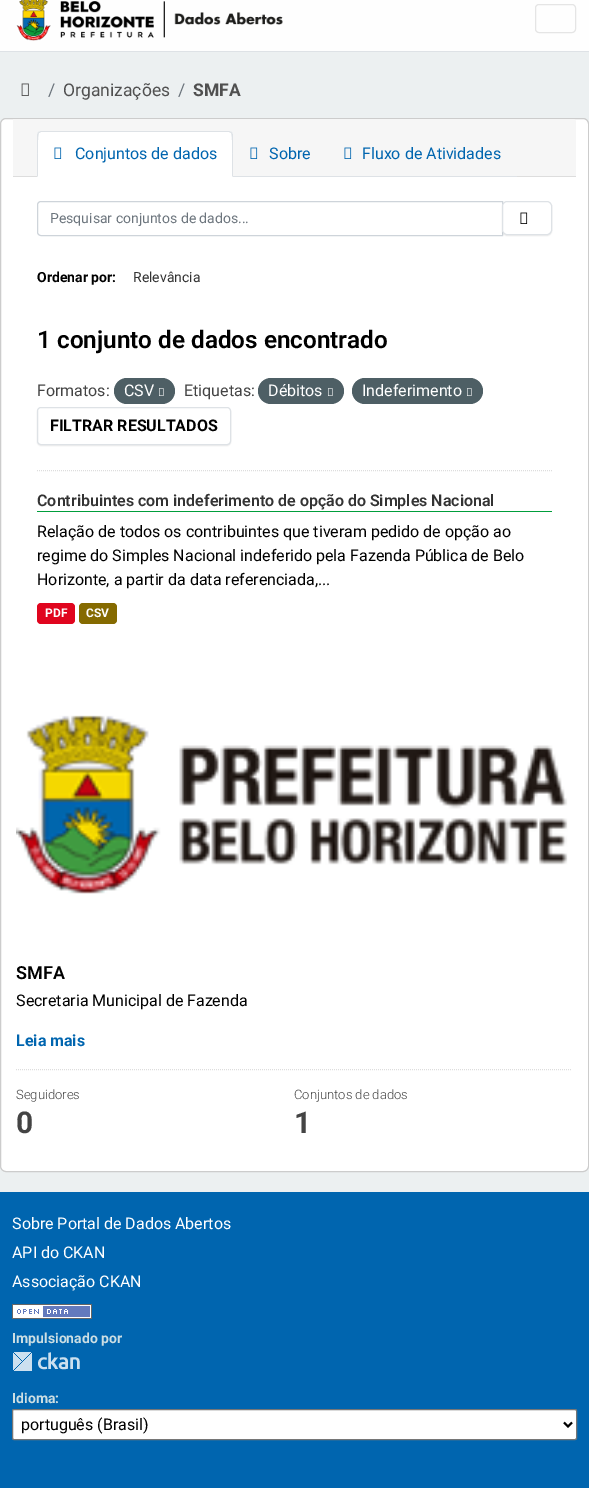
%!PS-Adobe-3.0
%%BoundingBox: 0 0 589 1488
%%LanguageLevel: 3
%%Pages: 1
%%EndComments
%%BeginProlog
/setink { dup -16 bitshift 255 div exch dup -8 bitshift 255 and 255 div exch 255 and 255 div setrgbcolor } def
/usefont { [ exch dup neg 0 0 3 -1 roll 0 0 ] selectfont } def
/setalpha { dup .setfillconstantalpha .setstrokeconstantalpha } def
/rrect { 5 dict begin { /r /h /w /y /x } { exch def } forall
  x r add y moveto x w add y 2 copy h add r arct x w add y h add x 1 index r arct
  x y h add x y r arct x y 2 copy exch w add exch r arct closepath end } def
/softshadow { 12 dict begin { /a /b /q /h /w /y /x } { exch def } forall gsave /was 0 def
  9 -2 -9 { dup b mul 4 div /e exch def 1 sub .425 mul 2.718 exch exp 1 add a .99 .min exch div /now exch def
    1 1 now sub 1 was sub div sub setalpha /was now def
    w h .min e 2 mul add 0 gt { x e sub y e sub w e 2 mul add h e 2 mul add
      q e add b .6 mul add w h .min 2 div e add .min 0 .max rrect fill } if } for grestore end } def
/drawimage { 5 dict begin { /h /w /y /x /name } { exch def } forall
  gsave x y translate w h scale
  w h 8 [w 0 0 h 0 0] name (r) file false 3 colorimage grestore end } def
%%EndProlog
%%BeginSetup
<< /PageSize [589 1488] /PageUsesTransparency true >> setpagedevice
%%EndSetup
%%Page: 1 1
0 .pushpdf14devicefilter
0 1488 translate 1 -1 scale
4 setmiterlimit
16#ECF0F1 setink
0 0 589 1488 rectfill
16#FEFEFE setink
0 0 589 51 rectfill
16#DEE2E6 setink
0 51 589 1 rectfill
(img1.raw) 16 0 267 41 drawimage
16#E5E5E5 setink
535.5 4.5 40 28 3.5 rrect stroke
(img2.raw) 21 83 8 13 drawimage
/Roboto-Regular 17.5 usefont
16#6C757D setink
48 96 moveto (/) show
16#505050 setink
63 96 moveto (Organizações) show
16#6C757D setink
178 96 moveto (/) show
/Roboto-Bold 17.5 usefont
16#505050 setink
193 96 moveto (SMFA) show
16#FFFFFF setink
0.5 118.5 588 1053 5.5 rrect gsave fill grestore
16#CCCCCC setink
stroke
16#F6F6F6 setink
13 119 moveto 573 119 lineto 574.5 119 576 120.5 576 122 curveto 576 177 lineto 13 177 lineto closepath fill
16#DDDDDD setink
13 176 563 1 rectfill
16#DEE2E6 setink
233 176 284 1 rectfill
16#FFFFFF setink
41 131 moveto 229 131 lineto 231 131 233 133 233 135 curveto 233 177 lineto 37 177 lineto 37 135 lineto 37 133 39 131 41 131 curveto closepath fill
16#DEE2E6 setink
41 131 moveto 38 132 lineto 39 133 lineto 41 132 lineto 229 132 lineto 231 133 lineto 232 132 lineto 229 131 lineto closepath fill
233 177 moveto 233 135 lineto 233 134 232 133 232 132 curveto 231 133 lineto 233 135 232 171 232 176 curveto closepath fill
37 177 moveto 38 176 lineto 38 171 37 135 39 133 curveto 38 132 lineto 37 135 lineto closepath fill
(img3.raw) 54 147 8 12 drawimage
/Roboto-Regular 16 usefont
16#0065AF setink
75 159 moveto (Conjuntos de dados) show
(img4.raw) 250 147 8 12 drawimage
269 159 moveto (Sobre) show
(img4.raw) 344 147 8 12 drawimage
362 159 moveto (Fluxo de Atividades) show
16#DDDDDD setink
[1 1] 0 setdash
37 470.5 moveto 552 470.5 lineto stroke
16#CED4DA setink
[] 0 setdash
41 201.5 moveto 502.5 201.5 lineto 502.5 235.5 lineto 41 235.5 lineto 39 235.5 37.5 234 37.5 232 curveto 37.5 205 lineto 37.5 203 39 201.5 41 201.5 curveto closepath stroke
/Roboto-Regular 14 usefont
16#6C757D setink
50 223 moveto (Pesquisar conjuntos de dados...) show
16#000000 setink
502 202 50 34 5 0.5 0.07 softshadow
16#FFFFFF setink
502.5 201.5 49 33 4.5 rrect gsave fill grestore
16#DEE2E6 setink
stroke
(img5.raw) 520 212 8 12 drawimage
/Roboto-Bold 14 usefont
16#000000 setink
37 282 moveto (Ordenar por:) show
/Roboto-Regular 14 usefont
16#333333 setink
133 282 moveto (Relevância) show
/Roboto-SemiBold 24.3 usefont
16#000000 setink
37 348 moveto (1 conjunto de dados encontrado) show
/Roboto-Regular 16 usefont
16#444444 setink
37 396 moveto (Formatos:) show
16#4E5F65 setink
114 378 61 26 13 rrect fill
16#FFFFFF setink
124 396 moveto (CSV) show
(img6.raw) 159 388 5 8 drawimage
16#444444 setink
184 396 moveto (Etiquetas:) show
16#4E5F65 setink
258 378 86 26 13 rrect fill
16#FFFFFF setink
268 396 moveto (Débitos) show
(img6.raw) 328 388 5 8 drawimage
16#4E5F65 setink
352 378 131 26 13 rrect fill
16#FFFFFF setink
362 396 moveto (Indeferimento) show
(img6.raw) 467 388 5 8 drawimage
16#000000 setink
37 408 194 38 4 0.5 0.07 softshadow
16#FFFFFF setink
37.5 407.5 193 37 3.5 rrect gsave fill grestore
16#DEE2E6 setink
stroke
/Roboto-Bold 16 usefont
16#000000 setink
50 431 moveto (FILTRAR RESULTADOS) show
16#009E3B setink
37 511 515 1 rectfill
/Roboto-SemiBold 16 usefont
16#333333 setink
37 506 moveto (Contribuintes com indeferimento de opção do Simples Nacional) show
/Roboto-Regular 16 usefont
16#000000 setink
[
    [(Relação de todos os contribuintes que tiveram pedido de opção ao) 37 537]
    [(regime do Simples Nacional indeferido pela Fazenda Pública de Belo) 37 561]
    [(Horizonte, a partir da data referenciada,...) 37 585]
] { aload pop moveto show } forall
16#E0051E setink
37 603 38 21 4 rrect fill
/Roboto-Bold 12 usefont
16#FFFFFF setink
45 617 moveto (PDF) show
16#856A00 setink
79 603 38 21 4 rrect fill
16#FFFFFF setink
86 617 moveto (CSV) show
(img7.raw) 16 715 552 179 drawimage
/Roboto-SemiBold 18 usefont
16#000000 setink
16 979 moveto (SMFA) show
/Roboto-Regular 16 usefont
16 1006 moveto (Secretaria Municipal de Fazenda) show
/Roboto-Bold 16 usefont
16#0065AF setink
16 1046 moveto (Leia mais) show
16#DDDDDD setink
[1 1] 0 setdash
16 1069.5 moveto 572 1069.5 lineto stroke
/Roboto-Light 13 usefont
16#444444 setink
16 1099 moveto (Seguidores) show
/Roboto-Bold 30 usefont
16 1133 moveto (0) show
/Roboto-Light 13 usefont
294 1099 moveto (Conjuntos de dados) show
/Roboto-Bold 30 usefont
294 1133 moveto (1) show
16#0065AF setink
0 1192 589 296 rectfill
/Roboto-Regular 16 usefont
16#FFFFFF setink
[
    [(Sobre Portal de Dados Abertos) 12 1229]
    [(API do CKAN) 12 1258]
    [(Associação CKAN) 12 1287]
] { aload pop moveto show } forall
(img8.raw) 12 1304 80 15 drawimage
/Roboto-Bold 14 usefont
16#CCDEE3 setink
12 1343 moveto (Impulsionado por) show
(img9.raw) 13 1352 67 19 drawimage
12 1403 moveto (Idioma:) show
16#FFFFFF setink
12.5 1409.5 564 30 1.5 rrect gsave fill grestore
16#767676 setink
[] 0 setdash
stroke
16#000000 setink
2 setlinewidth
564 1422.5 moveto 568 1426.5 lineto 572 1422.5 lineto stroke
/Roboto-Regular 16 usefont
21 1430 moveto (português \(Brasil\)) show
.poppdf14devicefilter showpage
%%EOF
